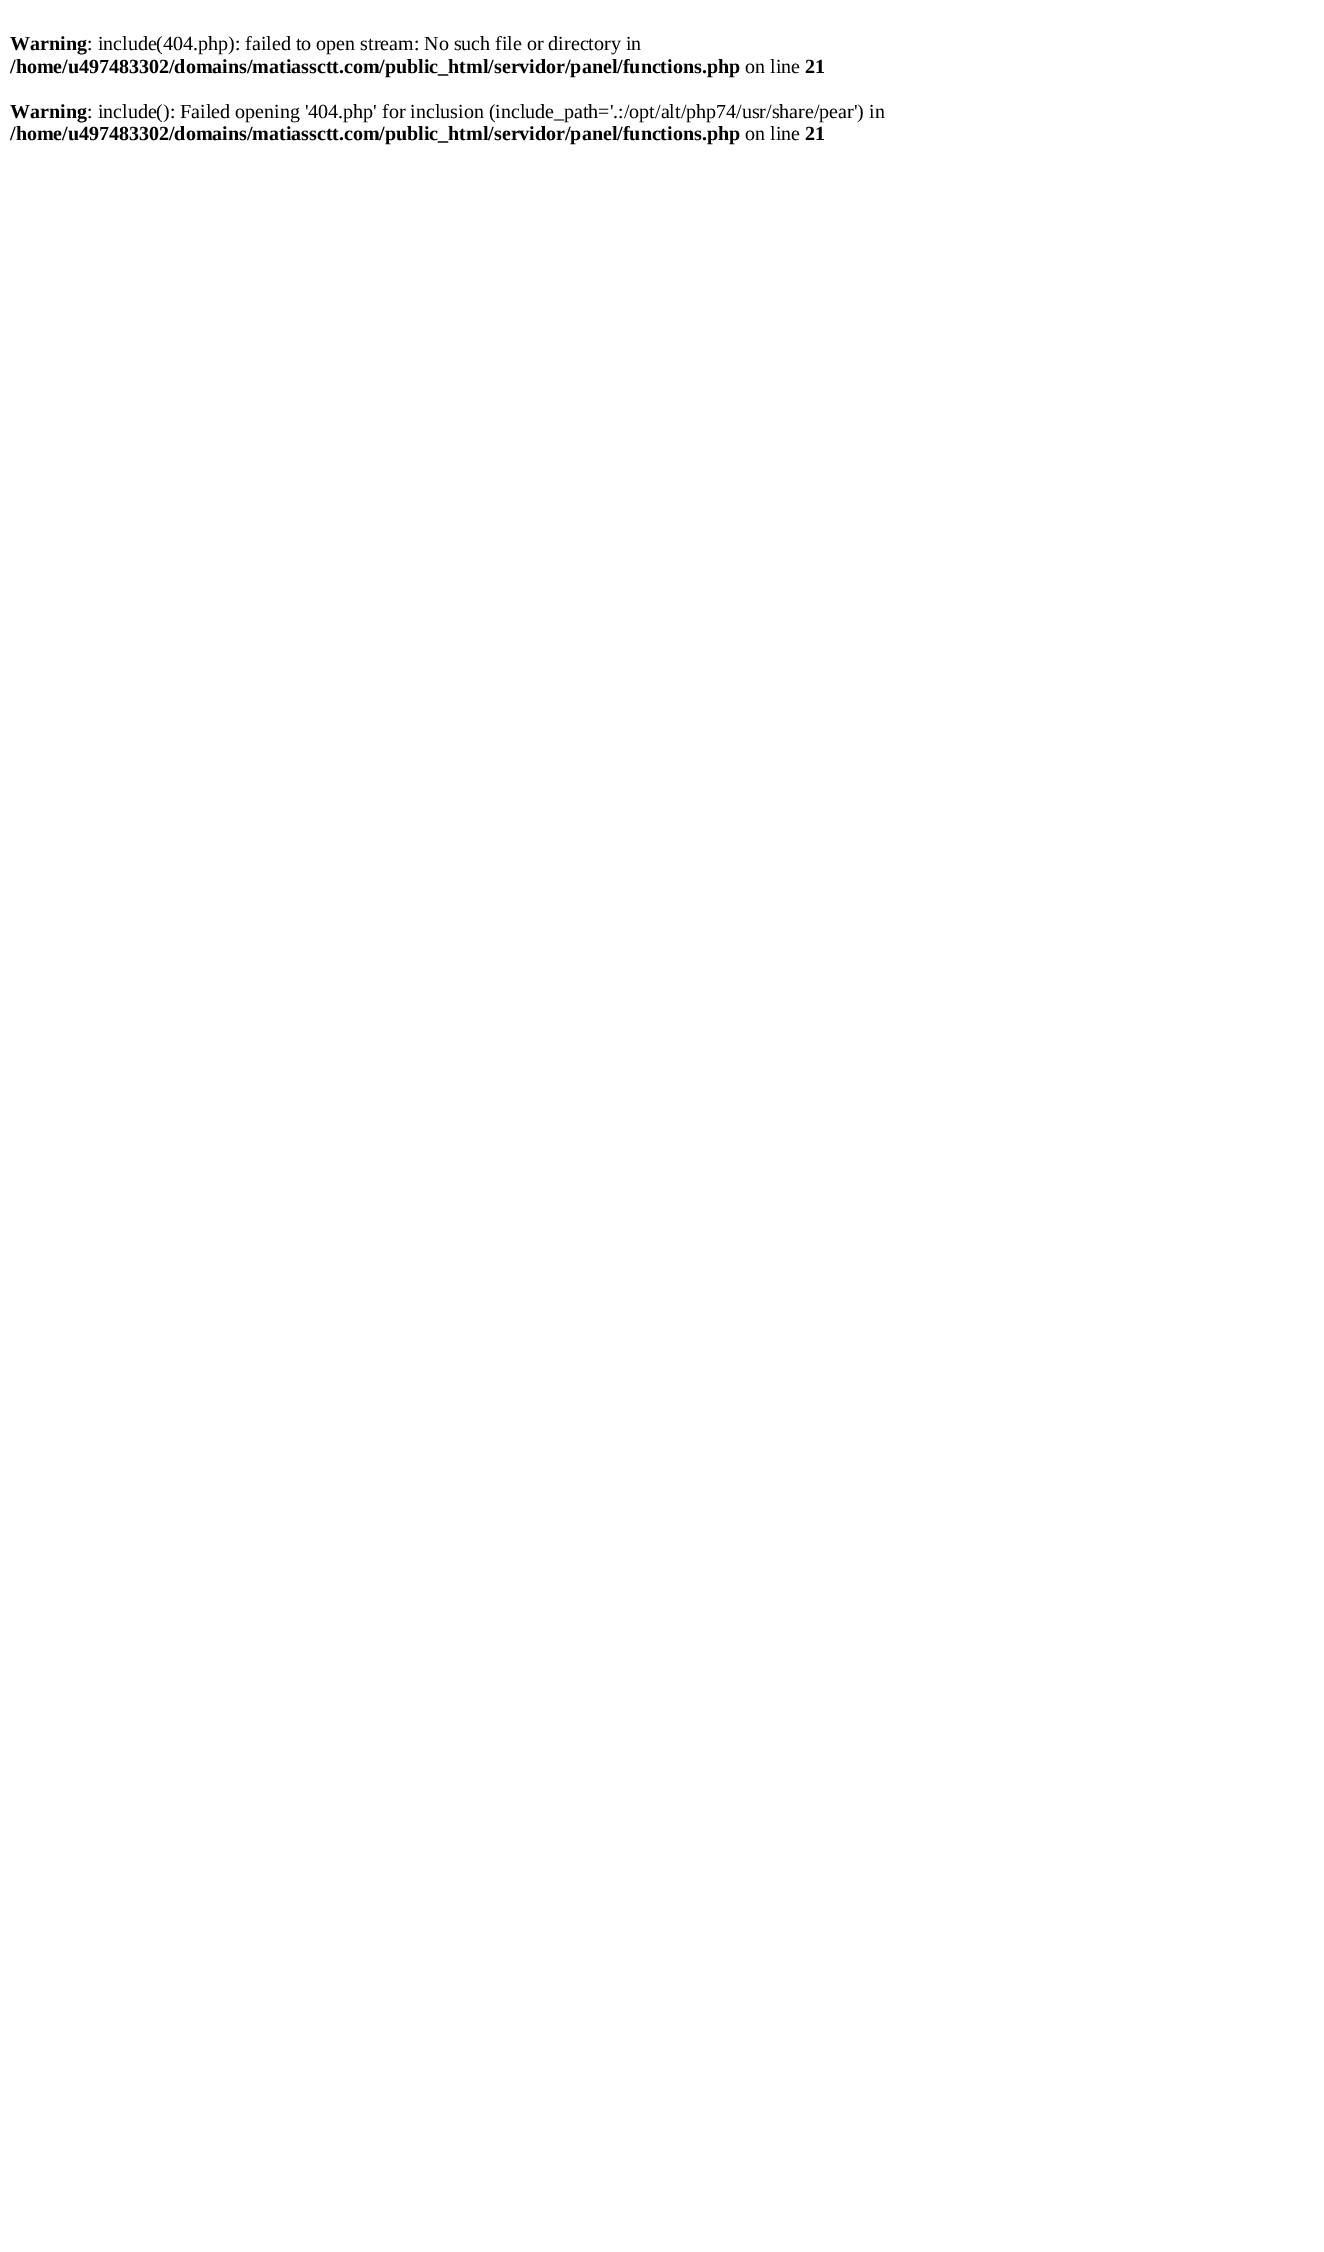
%!PS-Adobe-3.0
%%BoundingBox: 0 0 1324 2252
%%LanguageLevel: 3
%%Pages: 1
%%EndComments
%%BeginProlog
/setink { dup -16 bitshift 255 div exch dup -8 bitshift 255 and 255 div exch 255 and 255 div setrgbcolor } def
/usefont { [ exch dup neg 0 0 3 -1 roll 0 0 ] selectfont } def
%%EndProlog
%%BeginSetup
<< /PageSize [1324 2252] >> setpagedevice
%%EndSetup
%%Page: 1 1
0 2252 translate 1 -1 scale
4 setmiterlimit
16#FFFFFF setink
0 0 1324 2252 rectfill
/LiberationSerif-Bold 20 usefont
16#000000 setink
10 50 moveto (Warning) show
/LiberationSerif-Regular 20 usefont
87 50 moveto (: include\(404.php\): failed to open stream: No such file or directory in) show
/LiberationSerif-Bold 20 usefont
10 73 moveto (/home/u497483302/domains/matiassctt.com/public_html/servidor/panel/functions.php) show
/LiberationSerif-Regular 20 usefont
745 73 moveto (on line) show
/LiberationSerif-Bold 20 usefont
805 73 moveto (21) show
10 118 moveto (Warning) show
/LiberationSerif-Regular 20 usefont
87 118 moveto (: include\(\): Failed opening '404.php' for inclusion \(include_path='.:/opt/alt/php74/usr/share/pear'\) in) show
/LiberationSerif-Bold 20 usefont
10 140 moveto (/home/u497483302/domains/matiassctt.com/public_html/servidor/panel/functions.php) show
/LiberationSerif-Regular 20 usefont
745 140 moveto (on line) show
/LiberationSerif-Bold 20 usefont
805 140 moveto (21) show
showpage
%%EOF
